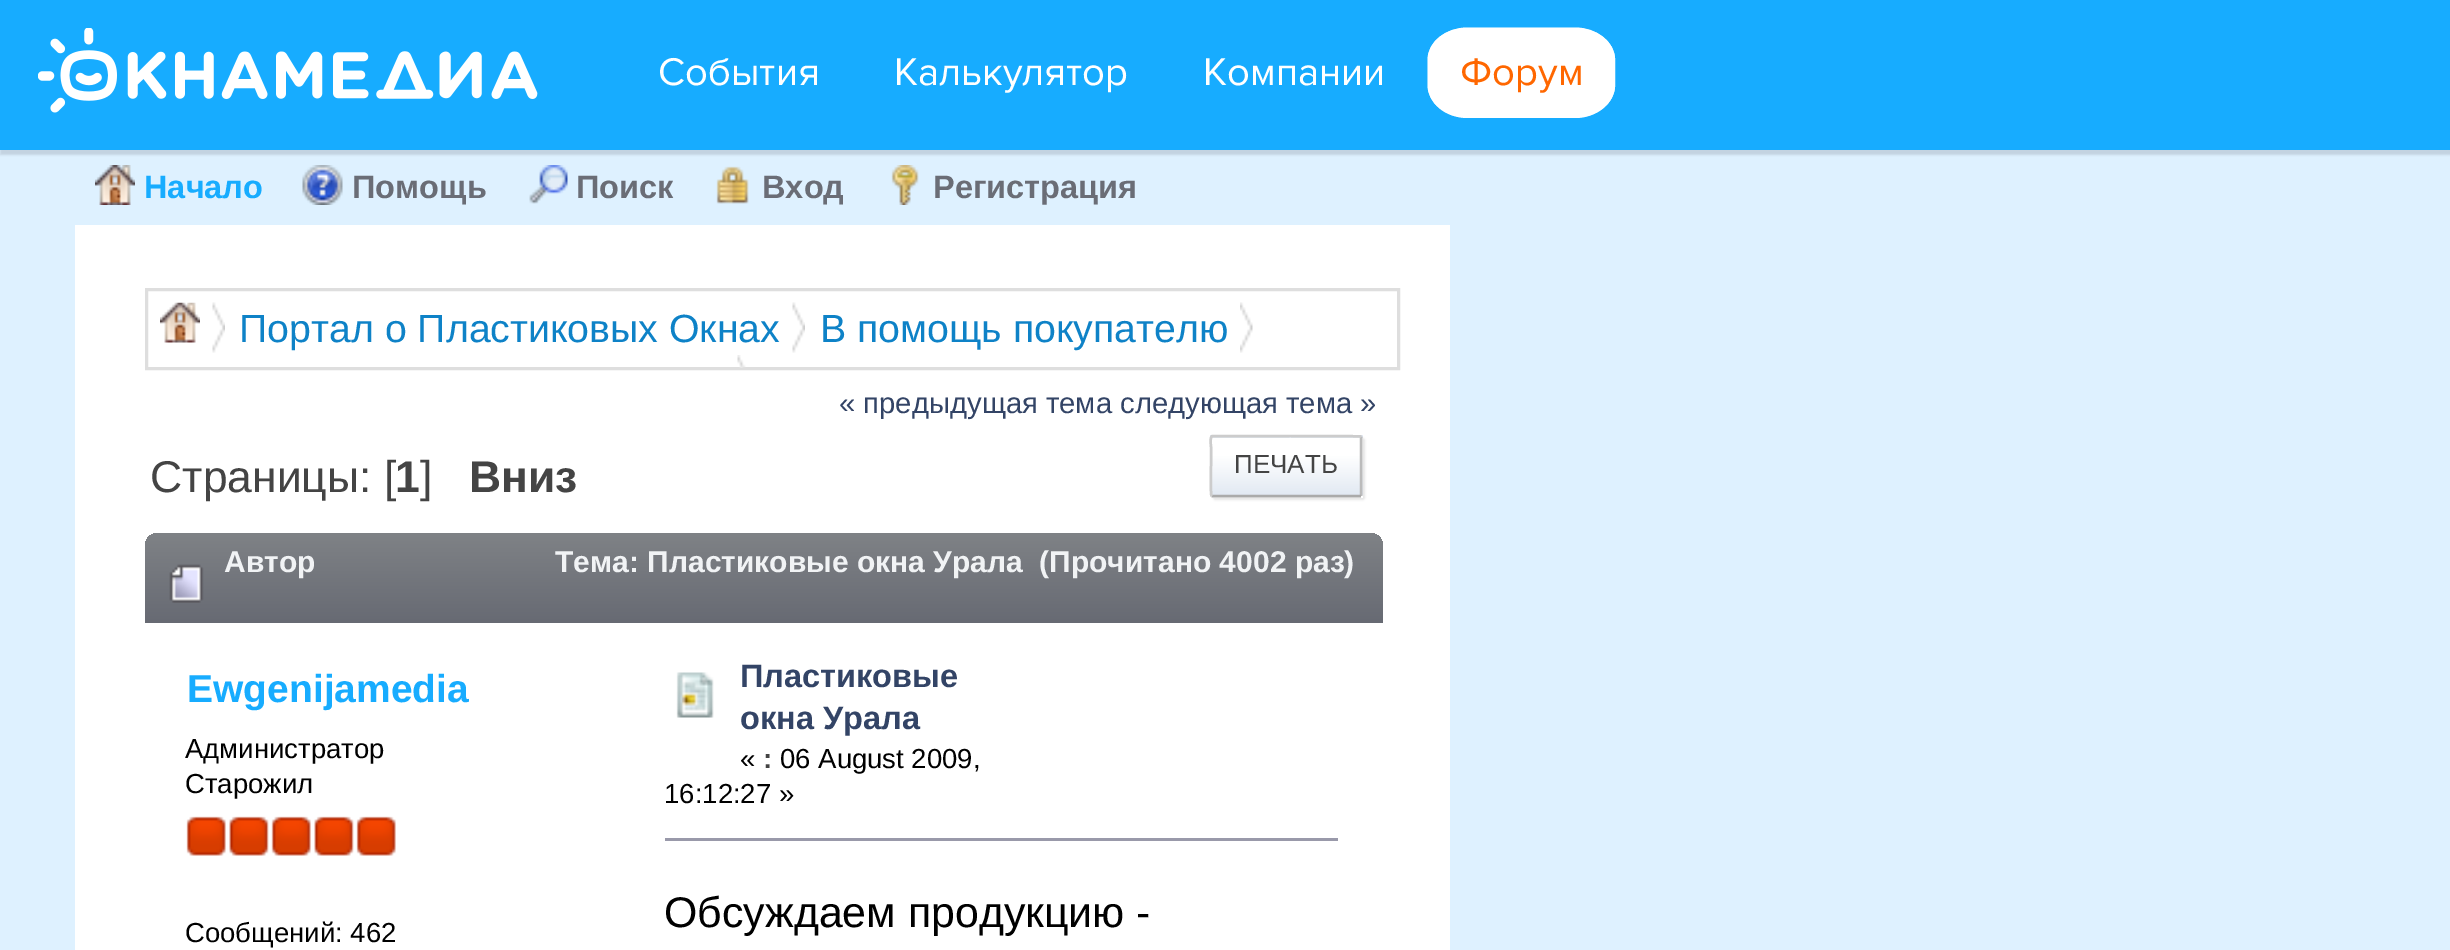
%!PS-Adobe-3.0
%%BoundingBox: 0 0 2450 950
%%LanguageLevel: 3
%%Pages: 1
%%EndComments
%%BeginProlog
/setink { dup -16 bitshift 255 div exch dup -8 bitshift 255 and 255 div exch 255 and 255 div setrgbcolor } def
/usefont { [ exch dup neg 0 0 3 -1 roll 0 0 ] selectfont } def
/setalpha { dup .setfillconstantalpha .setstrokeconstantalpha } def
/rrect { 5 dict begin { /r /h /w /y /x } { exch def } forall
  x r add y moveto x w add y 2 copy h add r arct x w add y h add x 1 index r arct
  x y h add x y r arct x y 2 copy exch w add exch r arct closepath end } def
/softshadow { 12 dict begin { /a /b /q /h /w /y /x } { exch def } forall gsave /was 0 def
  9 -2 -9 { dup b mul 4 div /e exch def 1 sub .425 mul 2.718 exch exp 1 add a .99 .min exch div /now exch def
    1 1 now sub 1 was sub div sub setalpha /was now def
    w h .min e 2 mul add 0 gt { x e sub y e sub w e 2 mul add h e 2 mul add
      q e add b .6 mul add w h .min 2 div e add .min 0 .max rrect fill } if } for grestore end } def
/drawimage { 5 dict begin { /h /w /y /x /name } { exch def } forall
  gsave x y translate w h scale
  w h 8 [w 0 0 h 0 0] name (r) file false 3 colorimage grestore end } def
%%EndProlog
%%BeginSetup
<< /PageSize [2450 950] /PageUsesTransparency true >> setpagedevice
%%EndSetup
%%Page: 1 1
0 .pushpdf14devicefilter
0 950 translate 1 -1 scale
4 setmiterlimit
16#DEF1FF setink
0 0 2450 950 rectfill
16#282E3B setink
0 5 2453 150 0 1 0.15 softshadow
16#17ACFF setink
0 0 2450 150 rectfill
(img1.raw) 38 28 500 85 drawimage
/ProximaNova-Regular 40 usefont
16#FFFFFF setink
[
    [(События) 658 85]
    [(Калькулятор) 894 85]
    [(Компании) 1203 85]
] { aload pop moveto show } forall
1468 28 moveto 1575 28 lineto 1597 28 1615 42 1615 60 curveto 1615 85 lineto 1615 103 1597 118 1575 118 curveto 1468 118 lineto 1445 118 1428 103 1428 85 curveto 1428 60 lineto 1428 42 1445 28 1468 28 curveto closepath fill
5 setlinewidth
1467.5 30 moveto 1575 30 lineto 1595.5 30 1612.5 43.5 1612.5 60 curveto 1612.5 85 lineto 1612.5 101.5 1595.5 115 1575 115 curveto 1467.5 115 lineto 1447 115 1430 101.5 1430 85 curveto 1430 60 lineto 1430 43.5 1447 30 1467.5 30 curveto closepath stroke
16#FF6700 setink
1460 85 moveto (Форум) show
(img2.raw) 95 165 40 40 drawimage
/LiberationSans-Bold 32.5 usefont
16#17ACFF setink
144 198 moveto (Начало) show
(img3.raw) 302 165 41 40 drawimage
16#6A6D76 setink
352 198 moveto (Помощь) show
(img4.raw) 529 165 39 39 drawimage
576 198 moveto (Поиск) show
(img5.raw) 716 166 33 38 drawimage
762 198 moveto (Вход) show
(img6.raw) 891 165 28 40 drawimage
933 198 moveto (Регистрация) show
16#FFFFFF setink
75 225 1375 725 rectfill
16#DEDEDE setink
3 setlinewidth
146.5 289.5 1252 79 rectstroke
(img7.raw) 212 302 13 51 drawimage
(img8.raw) 160 302 40 41 drawimage
(img7.raw) 792 302 13 51 drawimage
/LiberationSans-Regular 39.3 usefont
16#0E82C7 setink
239 342 moveto (Портал o Пластиковых Окнах) show
(img9.raw) 1240 302 13 51 drawimage
820 342 moveto (В помощь покупателю) show
(img10.raw) 737 355 9 13 drawimage
/LiberationSans-Regular 29.25 usefont
16#334466 setink
839 413 moveto (« предыдущая тема следующая тема ») show
/LiberationSans-Regular 44.5 usefont
16#444444 setink
150 492 moveto (Страницы: [) show
/LiberationSans-Bold 44.5 usefont
395 492 moveto (1) show
/LiberationSans-Regular 44.5 usefont
420 492 moveto (]) show
/LiberationSans-Bold 44.5 usefont
469 492 moveto (Вниз) show
16#000000 setink
1213 438 152 62 2.5 1 0.1 softshadow
gsave 1212.5 435 moveto 1360.5 435 lineto 1362 435 1363 436 1363 437.5 curveto 1363 438 lineto 1210 438 lineto 1210 437.5 lineto 1210 436 1211 435 1212.5 435 curveto closepath clip newpath
<< /ShadingType 2 /ColorSpace /DeviceRGB /Coords [1286 438 1286 380] /Extend [true true] /Function << /FunctionType 3 /Domain [0 1] /Functions [<< /FunctionType 2 /Domain [0 1] /C0 [0.886 0.914 0.953] /C1 [0.886 0.914 0.953] /N 1 >> << /FunctionType 2 /Domain [0 1] /C0 [0.886 0.914 0.953] /C1 [1 1 1] /N 1 >> << /FunctionType 2 /Domain [0 1] /C0 [1 1 1] /C1 [1 1 1] /N 1 >>] /Bounds [0.01 0.7] /Encode [0 1 0 1 0 1] >> >> shfill grestore
gsave 1210 438 moveto 1363 438 lineto 1363 495 lineto 1210 495 lineto closepath clip newpath
<< /ShadingType 2 /ColorSpace /DeviceRGB /Coords [1286 495 1286 438] /Extend [true true] /Function << /FunctionType 3 /Domain [0 1] /Functions [<< /FunctionType 2 /Domain [0 1] /C0 [0.886 0.914 0.953] /C1 [0.886 0.914 0.953] /N 1 >> << /FunctionType 2 /Domain [0 1] /C0 [0.886 0.914 0.953] /C1 [1 1 1] /N 1 >> << /FunctionType 2 /Domain [0 1] /C0 [1 1 1] /C1 [1 1 1] /N 1 >>] /Bounds [0.01 0.7] /Encode [0 1 0 1 0 1] >> >> shfill grestore
gsave 1210 495 moveto 1363 495 lineto 1363 495.5 lineto 1363 497 1362 498 1360.5 498 curveto 1212.5 498 lineto 1211 498 1210 497 1210 495.5 curveto closepath clip newpath
<< /ShadingType 2 /ColorSpace /DeviceRGB /Coords [1286 553 1286 495] /Extend [true true] /Function << /FunctionType 3 /Domain [0 1] /Functions [<< /FunctionType 2 /Domain [0 1] /C0 [0.886 0.914 0.953] /C1 [0.886 0.914 0.953] /N 1 >> << /FunctionType 2 /Domain [0 1] /C0 [0.886 0.914 0.953] /C1 [1 1 1] /N 1 >> << /FunctionType 2 /Domain [0 1] /C0 [1 1 1] /C1 [1 1 1] /N 1 >>] /Bounds [0.01 0.7] /Encode [0 1 0 1 0 1] >> >> shfill grestore
16#BBBBBB setink
2.5 setlinewidth
1361 436.5 moveto 1361 447 lineto 1361 496 lineto stroke
16#AAAAAA setink
1361 496 moveto 1360 496 lineto 1212.5 496 lineto 1211.5 496 lineto stroke
16#CCCCCC setink
1211.5 496 moveto 1210.5 494.5 1211 469.5 1211 466 curveto 1211 447 lineto 1211 446 1209.5 436.5 1212.5 436 curveto 1286 436 lineto 1292.5 436 1360 436 1361 436.5 curveto stroke
/LiberationSans-Regular 26 usefont
16#444444 setink
1234 473 moveto (ПЕЧАТЬ) show
gsave 158 533 moveto 1370 533 lineto 1377 533 1383 539 1383 546 curveto 1383 623 lineto 145 623 lineto 145 546 lineto 145 539 151 533 158 533 curveto closepath clip newpath
<< /ShadingType 2 /ColorSpace /DeviceRGB /Coords [764 532 764 623] /Extend [true true] /Function << /FunctionType 2 /Domain [0 1] /C0 [0.498 0.51 0.525] /C1 [0.404 0.416 0.451] /N 1 >> >> shfill grestore
(img11.raw) 169 564 35 39 drawimage
/LiberationSans-Bold 30 usefont
16#F1F3F5 setink
224 572 moveto (Автор) show
555 572 moveto (Тема: Пластиковые окна Урала  \(Прочитано 4002 раз\)) show
/LiberationSans-Bold 39 usefont
16#17ACFF setink
187 702 moveto (Ewgenijamedia) show
/LiberationSans-Regular 27.5 usefont
16#000000 setink
185 758 moveto (Администратор) show
185 793 moveto (Старожил) show
(img12.raw) 186 816 40 40 drawimage
(img13.raw) 229 816 40 40 drawimage
(img14.raw) 271 816 40 40 drawimage
(img13.raw) 314 816 40 40 drawimage
(img12.raw) 356 816 40 40 drawimage
185 942 moveto (Сообщений: 462) show
(img15.raw) 676 672 38 46 drawimage
/LiberationSans-Bold 32.5 usefont
16#334466 setink
740 687 moveto (Пластиковые) show
740 729 moveto (окна Урала) show
/LiberationSans-Regular 27.5 usefont
16#000000 setink
740 768 moveto («) show
/LiberationSans-Bold 27.5 usefont
16#444444 setink
763 768 moveto (:) show
/LiberationSans-Regular 27.5 usefont
16#000000 setink
780 768 moveto (06 August 2009,) show
664 803 moveto (16:12:27 ») show
16#9999AA setink
665 838 673 3 rectfill
/LiberationSans-Regular 42.9 usefont
16#000000 setink
664 927 moveto (Обсуждаем продукцию -) show
.poppdf14devicefilter showpage
%%EOF
